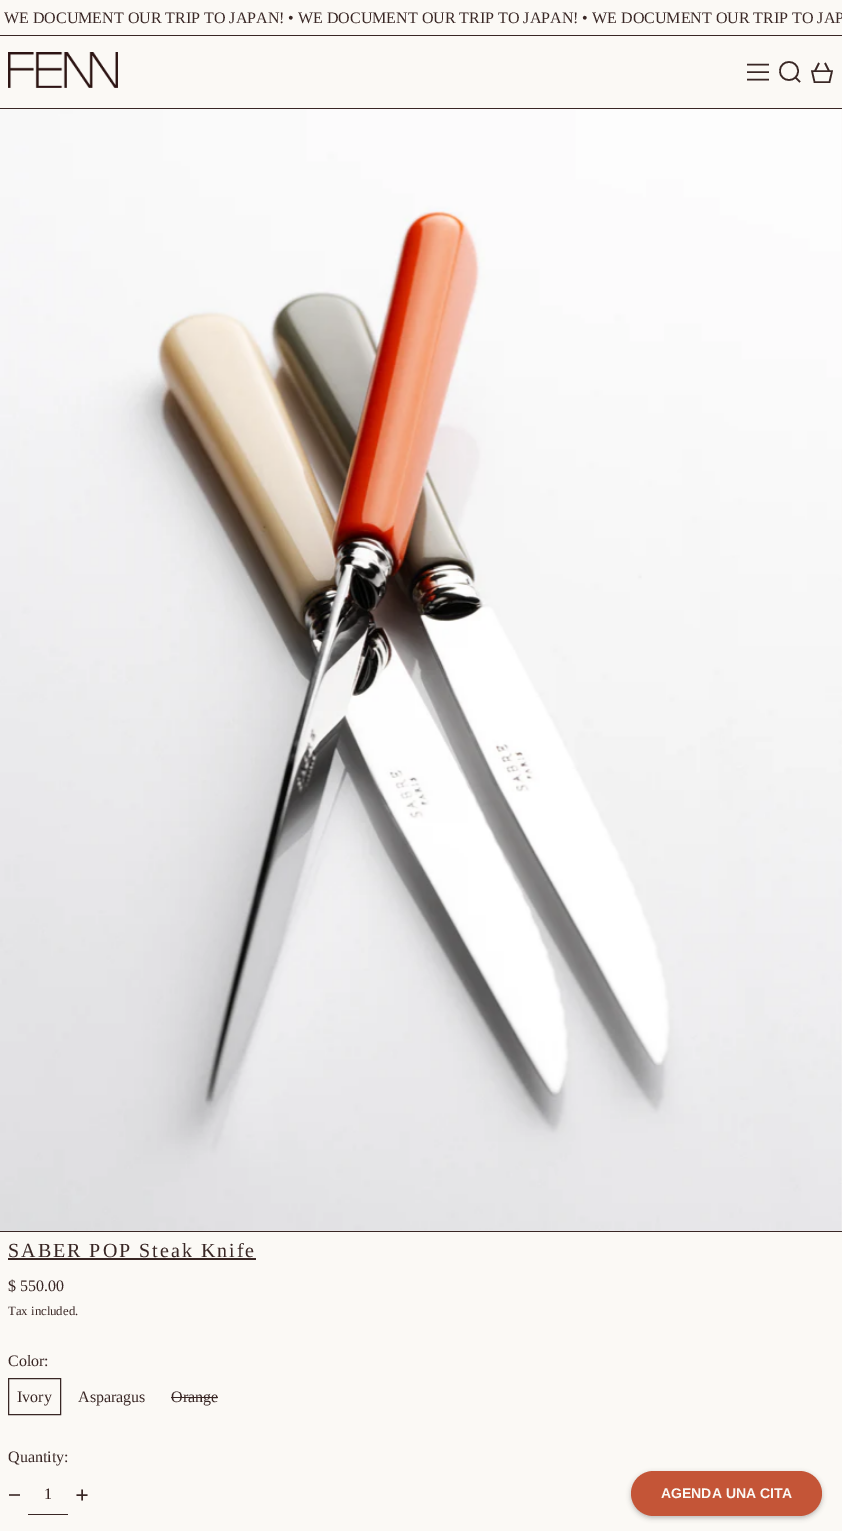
%!PS-Adobe-3.0
%%BoundingBox: 0 0 842 1531
%%LanguageLevel: 3
%%Pages: 1
%%EndComments
%%BeginProlog
/setink { dup -16 bitshift 255 div exch dup -8 bitshift 255 and 255 div exch 255 and 255 div setrgbcolor } def
/usefont { [ exch dup neg 0 0 3 -1 roll 0 0 ] selectfont } def
/setalpha { dup .setfillconstantalpha .setstrokeconstantalpha } def
/rrect { 5 dict begin { /r /h /w /y /x } { exch def } forall
  x r add y moveto x w add y 2 copy h add r arct x w add y h add x 1 index r arct
  x y h add x y r arct x y 2 copy exch w add exch r arct closepath end } def
/softshadow { 12 dict begin { /a /b /q /h /w /y /x } { exch def } forall gsave /was 0 def
  9 -2 -9 { dup b mul 4 div /e exch def 1 sub .425 mul 2.718 exch exp 1 add a .99 .min exch div /now exch def
    1 1 now sub 1 was sub div sub setalpha /was now def
    w h .min e 2 mul add 0 gt { x e sub y e sub w e 2 mul add h e 2 mul add
      q e add b .6 mul add w h .min 2 div e add .min 0 .max rrect fill } if } for grestore end } def
/drawimage { 5 dict begin { /h /w /y /x /name } { exch def } forall
  gsave x y translate w h scale
  w h 8 [w 0 0 h 0 0] name (r) file false 3 colorimage grestore end } def
%%EndProlog
%%BeginSetup
<< /PageSize [842 1531] /PageUsesTransparency true >> setpagedevice
%%EndSetup
%%Page: 1 1
0 .pushpdf14devicefilter
0 1531 translate 1 -1 scale
4 setmiterlimit
16#FBF9F5 setink
0 0 842 1531 rectfill
16#392725 setink
0 35 842 1 rectfill
/LiberationSerif-Regular 16 usefont
4 23 moveto (WE DOCUMENT OUR TRIP TO JAPAN! • WE DOCUMENT OUR TRIP TO JAPAN! • WE DOCUMENT OUR TRIP TO JAP) show
0 108 842 1 rectfill
(img1.raw) 8 52 110 36 drawimage
1.6 setlinewidth
747 64.5 moveto 769 64.5 lineto 747 72 moveto 769 72 lineto 747 79.5 moveto 769 79.5 lineto 780 71 moveto 780 83 798 83 798 71 curveto 798 59 780 59 780 71 curveto closepath 795.5 77.5 moveto 800 82 lineto stroke
814.5 82 moveto 812 71 lineto 832 71 lineto 829.5 82 lineto closepath 815 71 moveto 819 63 lineto 829 71 moveto 825 63 lineto stroke
0 1231 842 1 rectfill
(img2.raw) 0 109 842 1122 drawimage
/LiberationSerif-Regular 20 usefont
8 1257 moveto 2 0 (SABER POP Steak Knife) ashow
8 1258 248 2 rectfill
/LiberationSerif-Regular 16 usefont
8 1291 moveto ($ 550.00) show
/LiberationSerif-Regular 12.75 usefont
8 1315 moveto (Tax included.) show
/LiberationSerif-Regular 16 usefont
8 1366 moveto (Color:) show
1 setlinewidth
8.5 1378.5 52 36 rectstroke
[
    [(Ivory) 17 1402]
    [(Asparagus) 78 1402]
    [(Orange) 171 1402]
] { aload pop moveto show } forall
171 1397 47 1 rectfill
8 1462 moveto (Quantity:) show
16#60514F setink
9 1494 11 2 rectfill
16#392725 setink
28 1514 40 1 rectfill
44 1499 moveto (1) show
1.6 setlinewidth
82 1489.5 moveto 82 1500.5 lineto 76.5 1495 moveto 87.5 1495 lineto stroke
16#000000 setink
631 1473 191 45 22.5 2.5 0.25 softshadow
16#C45537 setink
631 1471 191 45 22.5 rrect fill
/LiberationSans-Bold 14 usefont
16#FBF9F5 setink
661 1498 moveto (AGENDA UNA CITA) show
.poppdf14devicefilter showpage
%%EOF
